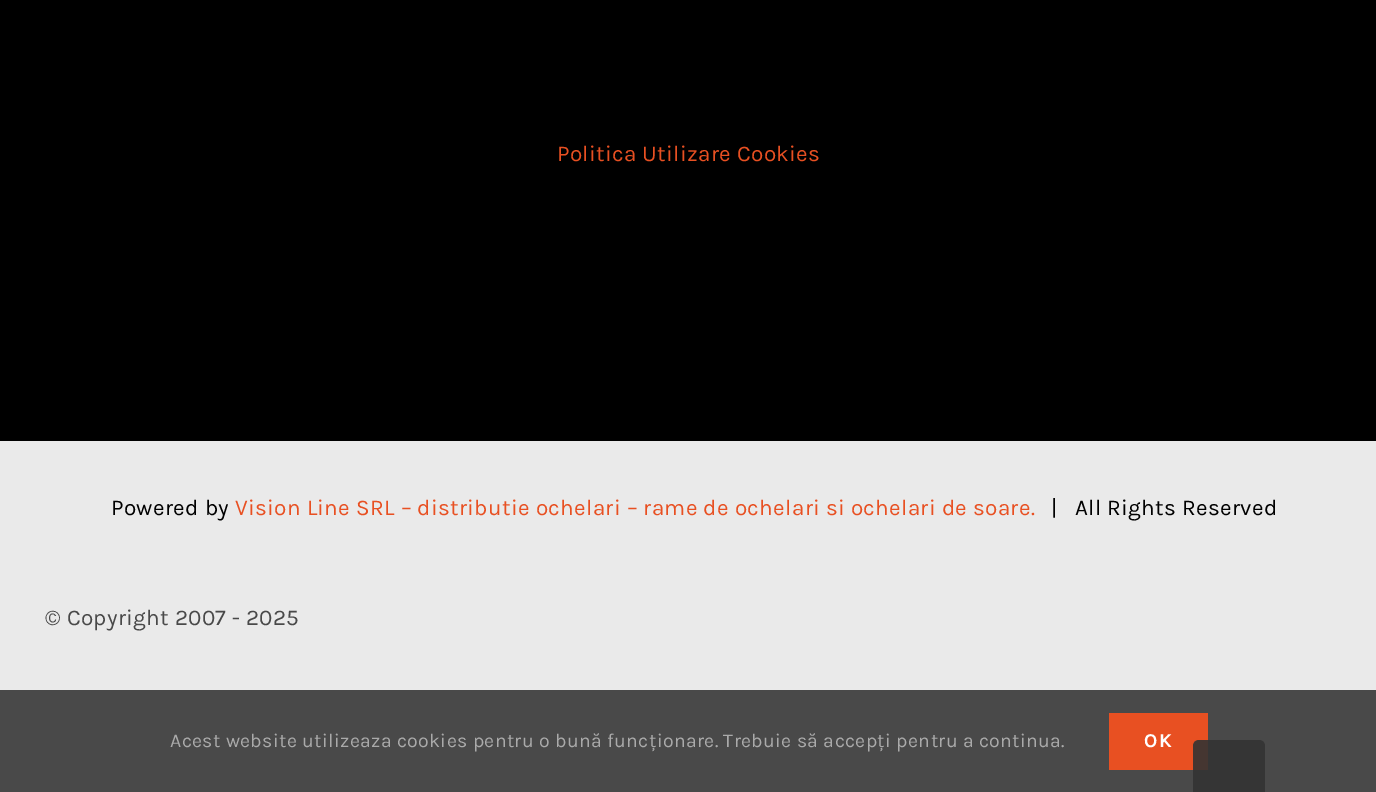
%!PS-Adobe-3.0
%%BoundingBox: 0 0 1376 792
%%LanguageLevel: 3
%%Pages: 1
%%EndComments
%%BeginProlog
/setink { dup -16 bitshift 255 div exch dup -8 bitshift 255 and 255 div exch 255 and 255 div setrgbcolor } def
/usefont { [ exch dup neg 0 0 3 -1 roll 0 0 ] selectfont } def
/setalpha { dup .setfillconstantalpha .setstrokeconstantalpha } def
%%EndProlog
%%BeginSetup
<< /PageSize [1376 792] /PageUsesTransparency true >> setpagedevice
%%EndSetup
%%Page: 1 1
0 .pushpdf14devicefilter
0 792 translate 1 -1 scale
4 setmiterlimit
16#000000 setink
0 0 1376 792 rectfill
/Karla-Regular 22.5 usefont
16#E85022 setink
557 161 moveto 0.35 0 (Politica Utilizare Cookies) ashow
16#EAEAEA setink
0 441 1376 249 rectfill
16#000000 setink
111 515 moveto 0.35 0 (Powered by) ashow
16#E85022 setink
235 515 moveto 0.35 0 (Vision Line SRL – distributie ochelari – rame de ochelari si ochelari de soare.) ashow
16#000000 setink
1051 515 moveto 0.35 0 (|   All Rights Reserved) ashow
16#494949 setink
45 625 moveto 0.35 0 (© Copyright 2007 - 2025) ashow
0 690 1376 102 rectfill
/Karla-Regular 19.5 usefont
16#AAAAAA setink
170 747 moveto 0.35 0 (Acest website utilizeaza cookies pentru o bună funcționare. Trebuie să accepți pentru a continua.) ashow
16#E85022 setink
1109 713 99 57 rectfill
/Karla-Bold 19.5 usefont
16#FFFFFF setink
1144 747 moveto 2 0 (OK) ashow
0.9 setalpha
16#333333 setink
1199 740 moveto 1259 740 lineto 1262.5 740 1265 742.5 1265 746 curveto 1265 792 lineto 1193 792 lineto 1193 746 lineto 1193 742.5 1195.5 740 1199 740 curveto closepath fill
.poppdf14devicefilter showpage
%%EOF
